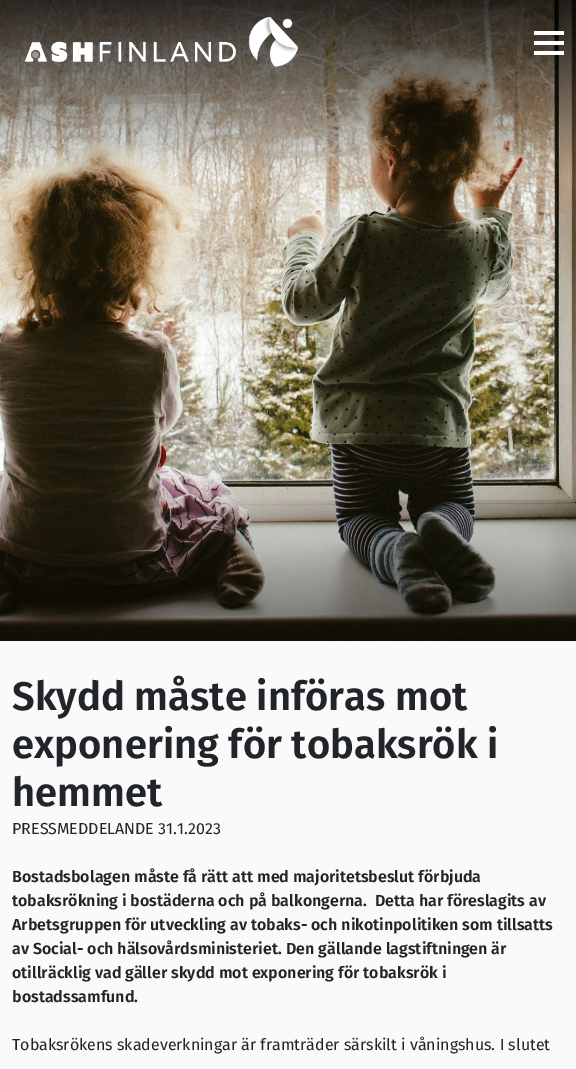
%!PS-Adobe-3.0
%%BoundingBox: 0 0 576 1069
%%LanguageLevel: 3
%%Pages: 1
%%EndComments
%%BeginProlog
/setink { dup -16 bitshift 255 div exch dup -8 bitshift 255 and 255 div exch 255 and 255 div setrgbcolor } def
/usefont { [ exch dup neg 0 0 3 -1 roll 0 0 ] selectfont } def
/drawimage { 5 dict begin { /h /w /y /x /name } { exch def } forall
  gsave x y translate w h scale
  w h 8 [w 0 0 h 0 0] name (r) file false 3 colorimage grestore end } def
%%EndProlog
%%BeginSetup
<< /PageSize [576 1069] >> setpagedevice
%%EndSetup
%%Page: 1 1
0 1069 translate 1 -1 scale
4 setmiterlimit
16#FAFAFA setink
0 0 576 1069 rectfill
(img2.raw) 0 0 576 641 drawimage
(img1.raw) 24 17 275 50 drawimage
[
    [534 41 30 4 16#FFFFFF]
    [534 31 30 4 16#FFFFFF]
    [534 51 30 4 16#FFFFFF]
] { aload pop setink rectfill } forall
/FiraSans-SemiBold 40 usefont
16#212529 setink
[
    [(Skydd måste införas mot) 12 710]
    [(exponering för tobaksrök i) 12 758]
    [(hemmet) 12 806]
] { aload pop moveto show } forall
/FiraSans-Regular 16 usefont
12 834 moveto (PRESSMEDDELANDE 31.1.2023) show
/FiraSans-SemiBold 16 usefont
[
    [(Bostadsbolagen måste få rätt att med majoritetsbeslut förbjuda) 12 882]
    [(tobaksrökning i bostäderna och på balkongerna.  Detta har föreslagits av) 12 906]
    [(Arbetsgruppen för utveckling av tobaks- och nikotinpolitiken som tillsatts) 12 930]
    [(av Social- och hälsovårdsministeriet.) 12 954]
    [(Den gällande lagstiftningen är) 286 954]
    [(otillräcklig vad gäller skydd mot exponering för tobaksrök i) 12 978]
    [(bostadssamfund.) 12 1002]
] { aload pop moveto show } forall
/FiraSans-Regular 16 usefont
12 1050 moveto (Tobaksrökens skadeverkningar är framträder särskilt i våningshus. I slutet) show
showpage
%%EOF
